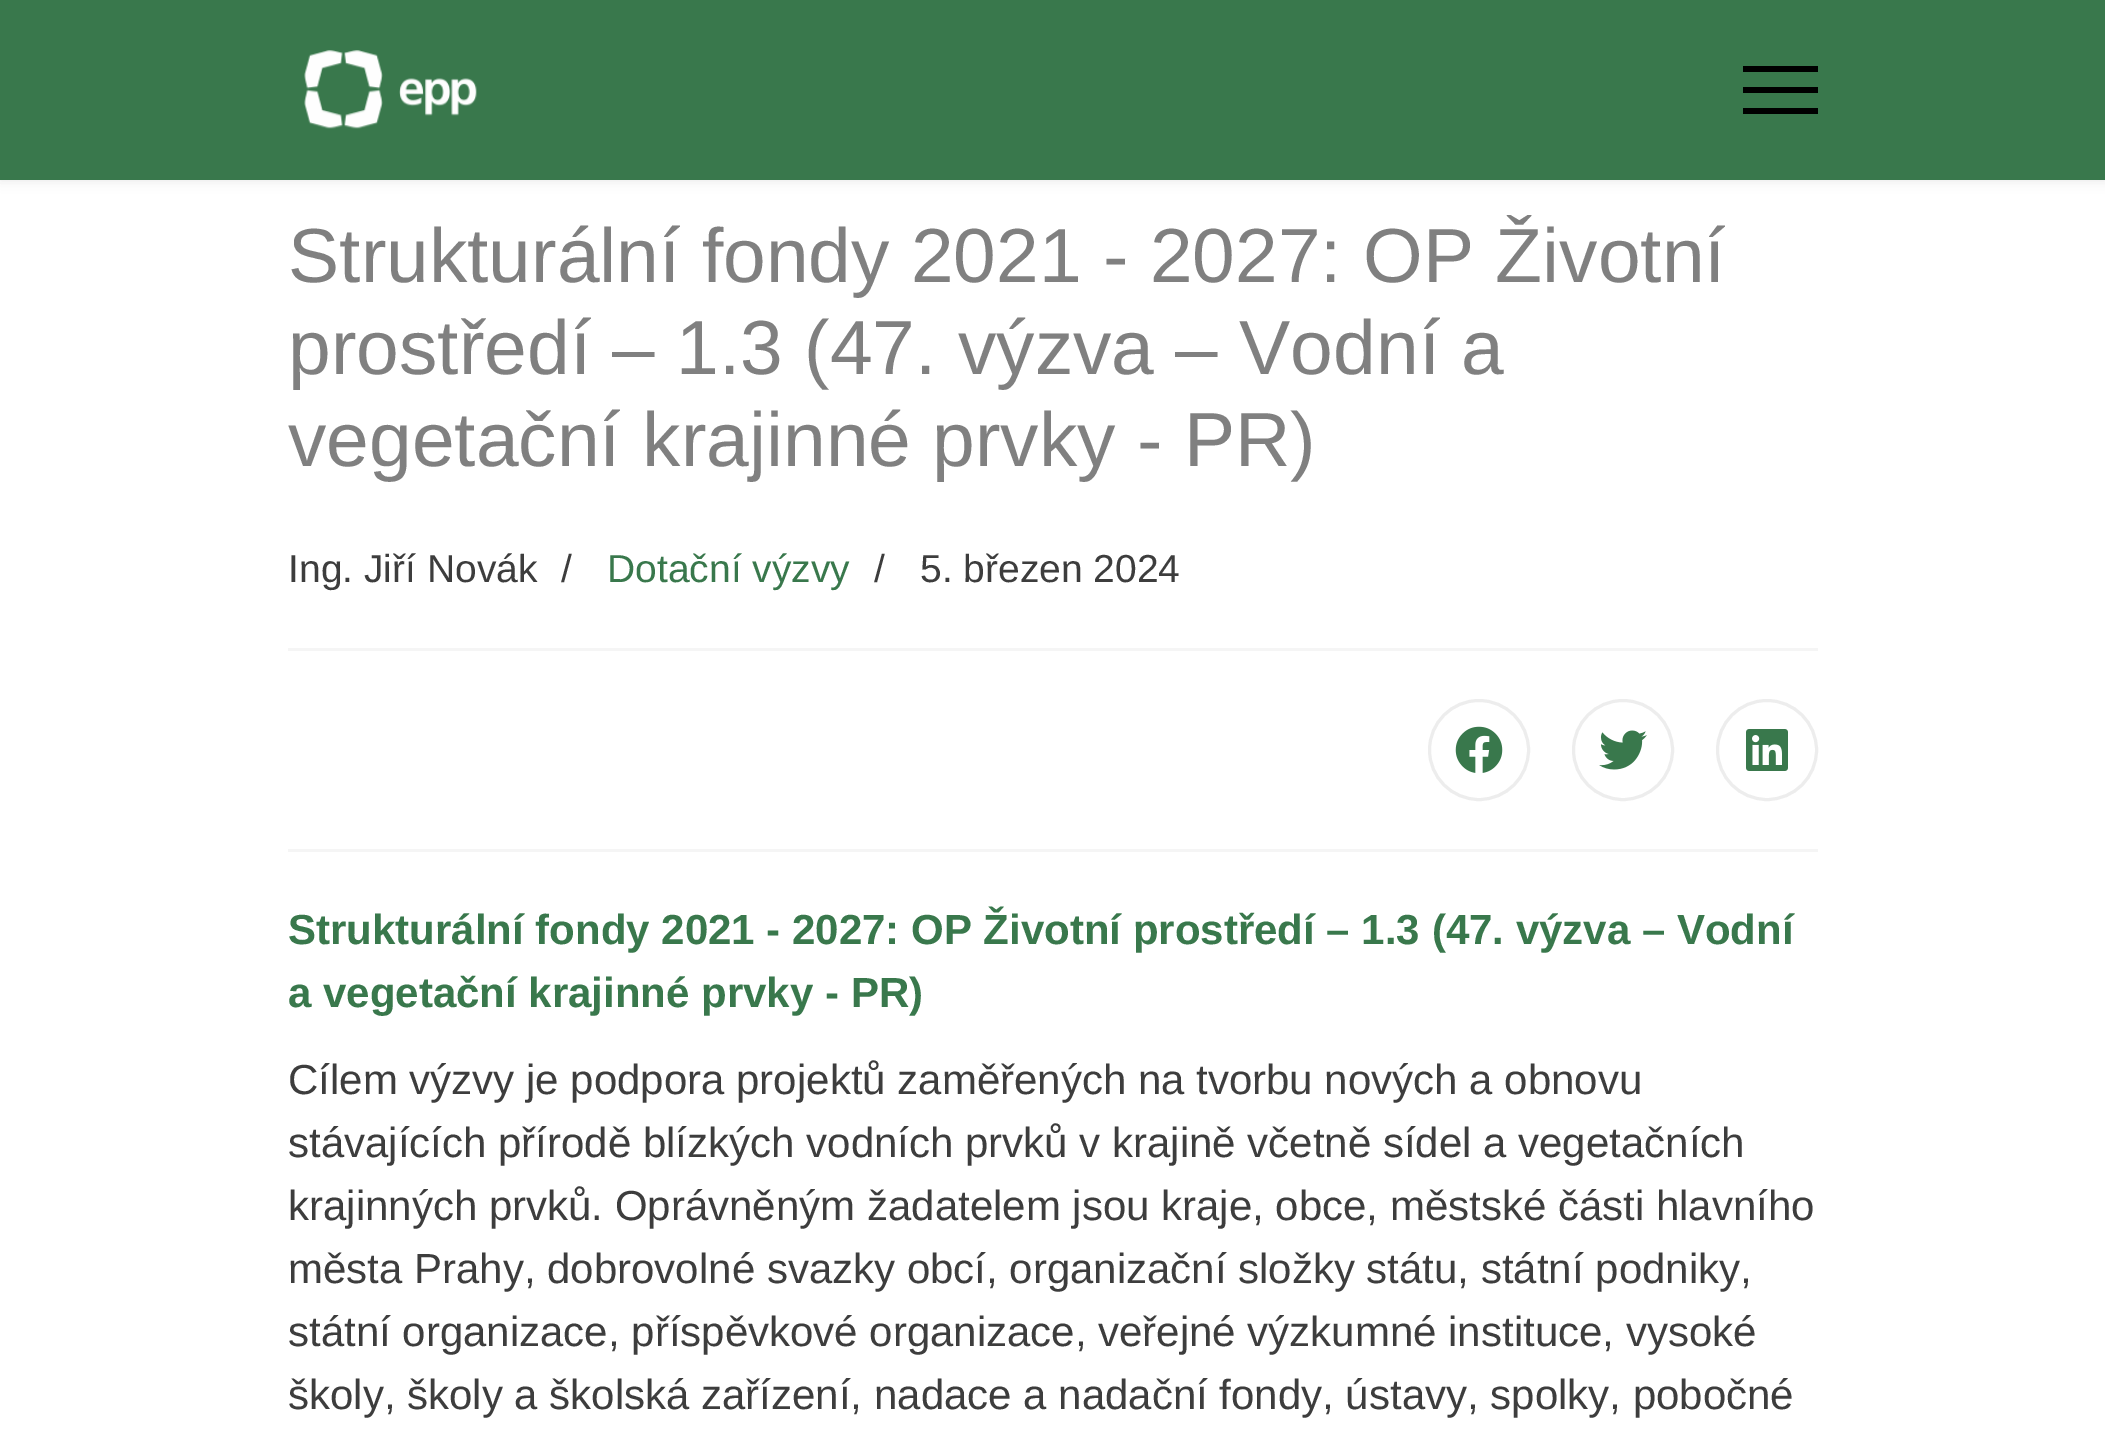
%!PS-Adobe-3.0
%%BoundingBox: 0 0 2105 1439
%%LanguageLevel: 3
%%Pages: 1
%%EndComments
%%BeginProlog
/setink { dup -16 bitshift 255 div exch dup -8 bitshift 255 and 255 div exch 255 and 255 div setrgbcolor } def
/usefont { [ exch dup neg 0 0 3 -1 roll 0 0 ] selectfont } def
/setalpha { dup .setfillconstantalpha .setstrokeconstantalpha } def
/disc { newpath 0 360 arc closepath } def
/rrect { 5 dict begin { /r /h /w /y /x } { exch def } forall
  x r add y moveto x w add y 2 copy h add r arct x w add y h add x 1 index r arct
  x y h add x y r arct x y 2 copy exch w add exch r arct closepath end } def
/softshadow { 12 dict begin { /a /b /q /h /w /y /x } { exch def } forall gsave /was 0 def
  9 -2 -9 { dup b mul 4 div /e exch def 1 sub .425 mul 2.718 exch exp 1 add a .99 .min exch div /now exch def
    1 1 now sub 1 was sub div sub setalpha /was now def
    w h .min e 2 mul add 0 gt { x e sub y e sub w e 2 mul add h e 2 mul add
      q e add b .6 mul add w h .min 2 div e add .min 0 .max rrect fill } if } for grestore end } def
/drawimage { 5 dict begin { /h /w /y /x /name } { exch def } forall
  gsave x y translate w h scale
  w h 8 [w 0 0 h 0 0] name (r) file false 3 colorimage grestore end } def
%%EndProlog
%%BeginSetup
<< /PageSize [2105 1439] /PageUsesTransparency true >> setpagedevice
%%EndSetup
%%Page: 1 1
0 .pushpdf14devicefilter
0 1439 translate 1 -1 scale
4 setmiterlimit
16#FFFFFF setink
0 0 2105 1439 rectfill
16#000000 setink
0 0 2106 180 0 6 0.1 softshadow
16#39784C setink
0 0 2105 180 rectfill
(img1.raw) 304 50 173 79 drawimage
[
    [1743 66 75 6 16#000000]
    [1743 87 75 6 16#000000]
    [1743 108 75 6 16#000000]
] { aload pop setink rectfill } forall
/LiberationSans-Regular 76.75 usefont
16#808080 setink
[
    [(Strukturální fondy 2021 - 2027: OP Životní) 288 282]
    [(prostředí – 1.3 \(47. výzva – Vodní a) 288 374]
    [(vegetační krajinné prvky - PR\)) 288 466]
] { aload pop moveto show } forall
/LiberationSans-Regular 39 usefont
16#3D3D3D setink
288 582 moveto (Ing. Jiří Novák) show
561 582 moveto (/) show
16#39784C setink
607 582 moveto (Dotační výzvy) show
16#3D3D3D setink
874 582 moveto (/) show
920 582 moveto (5. březen 2024) show
16#F5F5F5 setink
288 648 1530 3 rectfill
288 849 1530 3 rectfill
16#EDEDED setink
3 setlinewidth
1479 750 49.5 disc stroke
(img2.raw) 1455 726 48 47 drawimage
1623 750 49.5 disc stroke
(img3.raw) 1599 730 48 40 drawimage
1767 750 49.5 disc stroke
(img4.raw) 1746 729 42 42 drawimage
/LiberationSans-Bold 42 usefont
16#39784C setink
288 944 moveto (Strukturální fondy 2021 - 2027: OP Životní prostředí – 1.3 \(47. výzva – Vodní) show
288 1007 moveto (a vegetační krajinné prvky - PR\)) show
/LiberationSans-Regular 42 usefont
16#3D3D3D setink
[
    [(Cílem výzvy je podpora projektů zaměřených na tvorbu nových a obnovu) 288 1094]
    [(stávajících přírodě blízkých vodních prvků v krajině včetně sídel a vegetačních) 288 1157]
    [(krajinných prvků. Oprávněným žadatelem jsou kraje, obce, městské části hlavního) 288 1220]
    [(města Prahy, dobrovolné svazky obcí, organizační složky státu, státní podniky,) 288 1283]
    [(státní organizace, příspěvkové organizace, veřejné výzkumné instituce, vysoké) 288 1346]
    [(školy, školy a školská zařízení, nadace a nadační fondy, ústavy, spolky, pobočné) 288 1409]
] { aload pop moveto show } forall
.poppdf14devicefilter showpage
%%EOF
